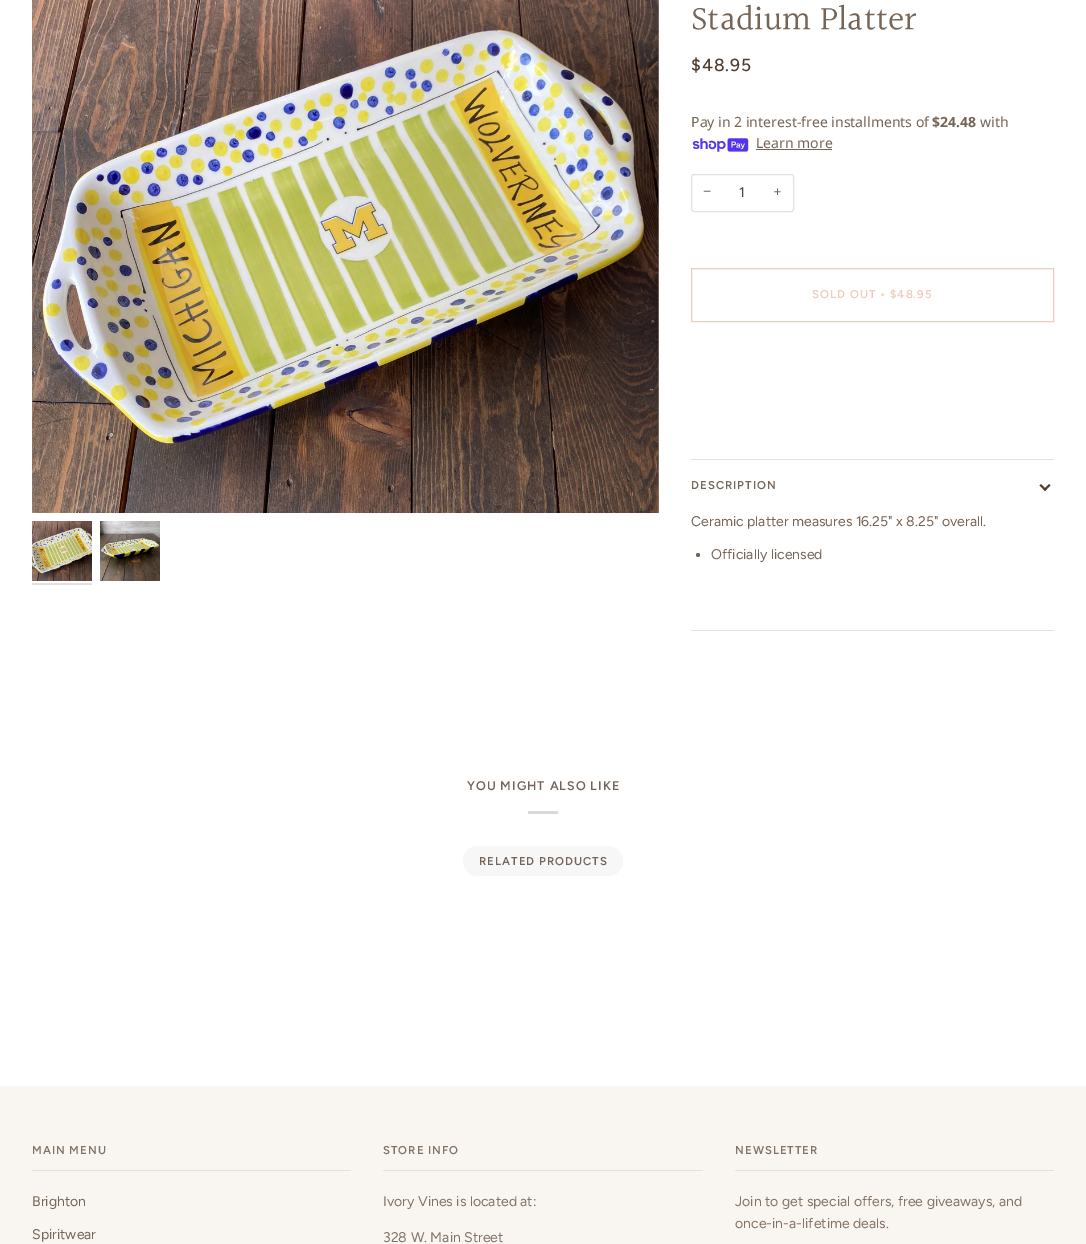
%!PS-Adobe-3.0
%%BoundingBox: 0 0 1086 1244
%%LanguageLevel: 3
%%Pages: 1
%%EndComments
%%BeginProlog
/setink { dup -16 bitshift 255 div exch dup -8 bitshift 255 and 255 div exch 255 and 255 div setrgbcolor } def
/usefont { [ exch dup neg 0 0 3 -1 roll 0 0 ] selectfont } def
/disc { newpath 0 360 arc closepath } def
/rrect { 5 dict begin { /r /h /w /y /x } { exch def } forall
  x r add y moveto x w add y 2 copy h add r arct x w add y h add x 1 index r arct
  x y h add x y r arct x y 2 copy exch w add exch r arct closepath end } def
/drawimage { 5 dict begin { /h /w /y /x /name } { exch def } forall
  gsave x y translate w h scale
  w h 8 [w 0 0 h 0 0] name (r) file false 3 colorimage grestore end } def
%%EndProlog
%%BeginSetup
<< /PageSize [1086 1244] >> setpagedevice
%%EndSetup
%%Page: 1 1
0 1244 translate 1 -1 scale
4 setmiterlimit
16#FFFFFF setink
0 0 1086 1244 rectfill
16#928369 setink
32 0 627 513 rectfill
(img1.raw) 32 0 627 513 drawimage
(img2.raw) 32 521 60 60 drawimage
16#E4E0DD setink
32 583 60 2 rectfill
(img3.raw) 100 521 60 60 drawimage
/Halant-Regular 34.5 usefont
16#766456 setink
691 31 moveto (Stadium Platter) show
/Figtree-Medium 17.5 usefont
16#503E30 setink
691 71 moveto 1 0 ($48.95) ashow
/NotoSans-Regular 14.05 usefont
16#766456 setink
691 127 moveto (Pay in 2 interest-free installments of) show
/NotoSans-Bold 14.05 usefont
932 127 moveto ($24.48) show
/NotoSans-Regular 14.05 usefont
980 127 moveto (with) show
(img4.raw) 692 138 57 14 drawimage
756 148 moveto (Learn more) show
756 149 76 1 rectfill
16#E4E0DD setink
691.5 174.5 102 37 2.5 rrect stroke
/LiberationSans-Regular 14.05 usefont
16#766456 setink
703 196 moveto (−) show
/Figtree-Regular 14.05 usefont
16#503E30 setink
739 197 moveto (1) show
16#766456 setink
773 196 moveto (+) show
16#EDCDBF setink
691.5 268.5 362 53 rectstroke
/Figtree-SemiBold 11.4 usefont
812 298 moveto 1 0 (SOLD OUT • $48.95) ashow
16#E4E0DD setink
691 459 363 1 rectfill
691 630 363 1 rectfill
16#766456 setink
691 489 moveto 1 0 (DESCRIPTION) ashow
16#503E30 setink
1043.5 489.5 moveto 1049 484 lineto 1050.5 485.5 lineto 1045 491 lineto closepath fill
1039.5 485.5 moveto 1041 484 lineto 1046.5 489.5 lineto 1045 491 lineto closepath fill
/Figtree-Regular 14.05 usefont
16#766456 setink
691 526 moveto (Ceramic platter measures 16.25" x 8.25" overall.) show
698 555 2 disc fill
711 559 moveto (Officially licensed) show
/Figtree-SemiBold 12.5 usefont
467 790 moveto 1 0 (YOU MIGHT ALSO LIKE) ashow
16#DCD8D6 setink
528 811 30 3 rectfill
16#F8F7F7 setink
463 846 160 30 15 rrect fill
/Figtree-SemiBold 11.4 usefont
16#766456 setink
479 865 moveto 1 0 (RELATED PRODUCTS) ashow
16#F9F6F2 setink
0 1086 1086 158 rectfill
16#E5E0DB setink
32 1170 319 1 rectfill
16#837366 setink
32 1154 moveto 1 0 (MAIN MENU) ashow
/Figtree-Regular 14.05 usefont
16#766456 setink
32 1206 moveto (Brighton) show
32 1239 moveto (Spiritwear) show
16#E5E0DB setink
383 1170 320 1 rectfill
/Figtree-SemiBold 11.4 usefont
16#837366 setink
383 1154 moveto 1 0 (STORE INFO) ashow
/Figtree-Regular 14.05 usefont
383 1206 moveto (Ivory Vines is located at:) show
383 1242 moveto (328 W. Main Street) show
16#E5E0DB setink
735 1170 319 1 rectfill
/Figtree-SemiBold 11.4 usefont
16#837366 setink
735 1154 moveto 1 0 (NEWSLETTER) ashow
/Figtree-Regular 14.05 usefont
735 1206 moveto (Join to get special offers, free giveaways, and) show
735 1228 moveto (once-in-a-lifetime deals.) show
showpage
%%EOF
